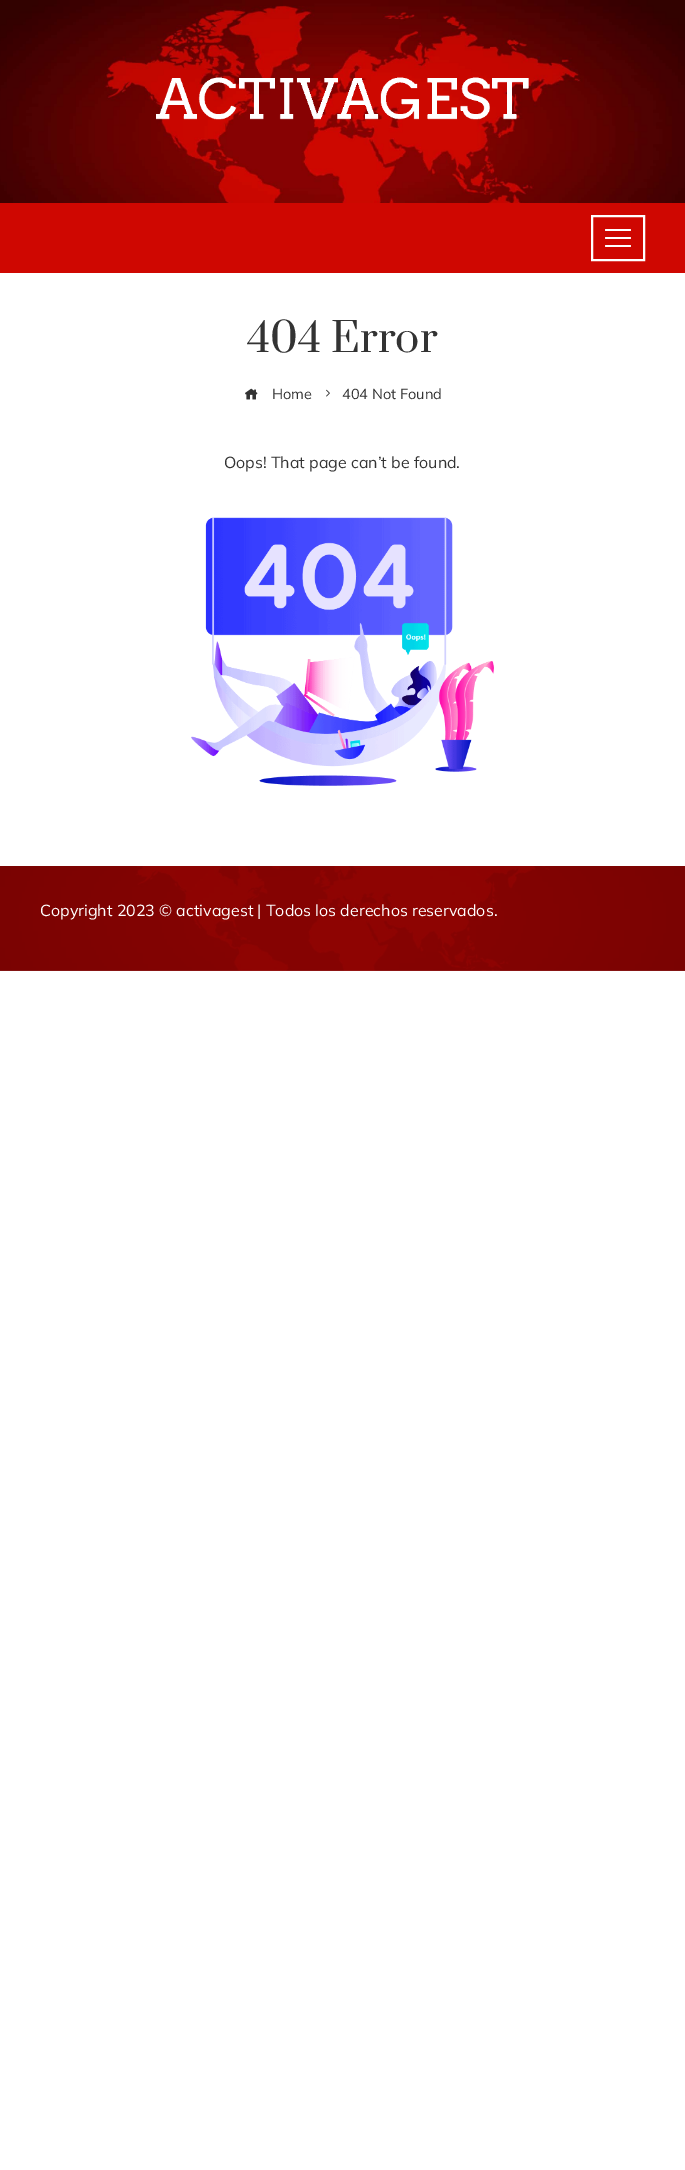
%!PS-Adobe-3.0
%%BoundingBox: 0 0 685 2170
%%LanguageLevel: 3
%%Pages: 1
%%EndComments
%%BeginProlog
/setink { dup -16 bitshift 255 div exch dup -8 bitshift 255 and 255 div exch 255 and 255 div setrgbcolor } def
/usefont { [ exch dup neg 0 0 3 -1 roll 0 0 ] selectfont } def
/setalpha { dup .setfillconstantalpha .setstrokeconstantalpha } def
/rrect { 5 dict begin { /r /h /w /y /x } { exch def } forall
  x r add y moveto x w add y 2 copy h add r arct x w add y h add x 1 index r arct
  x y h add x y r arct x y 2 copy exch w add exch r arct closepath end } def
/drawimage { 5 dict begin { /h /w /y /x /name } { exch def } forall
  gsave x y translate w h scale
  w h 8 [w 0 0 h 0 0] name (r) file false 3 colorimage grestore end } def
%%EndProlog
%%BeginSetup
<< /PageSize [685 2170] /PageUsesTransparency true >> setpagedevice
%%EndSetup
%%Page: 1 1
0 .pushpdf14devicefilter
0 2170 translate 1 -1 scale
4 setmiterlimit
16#FFFFFF setink
0 0 685 2170 rectfill
(img1.raw) 0 0 685 203 drawimage
(img2.raw) 156 77 373 43 drawimage
16#CF0701 setink
0 203 685 70 rectfill
16#FFFFFF setink
2 setlinewidth
592 216 52 44 rectstroke
605 229 26 2 1 rrect fill
605 237 26 2 1 rrect fill
605 245 26 2 1 rrect fill
/Prata-Regular 40 usefont
16#333333 setink
247 352 moveto (404 Error) show
(img3.raw) 245 388 13 12 drawimage
/Mulish-Regular 14.5 usefont
272 399 moveto (Home) show
(img4.raw) 326 389 4 8 drawimage
342 399 moveto (404 Not Found) show
/Mulish-Regular 16 usefont
224 468 moveto (Oops! That page can’t be found.) show
(img5.raw) 191 517 303 269 drawimage
(img6.raw) 0 866 685 105 drawimage
0.07 setalpha
16#FFFFFF setink
0 970 685 1 rectfill
1 setalpha
40 916 moveto (Copyright 2023 © activagest | Todos los derechos reservados.) show
.poppdf14devicefilter showpage
%%EOF
